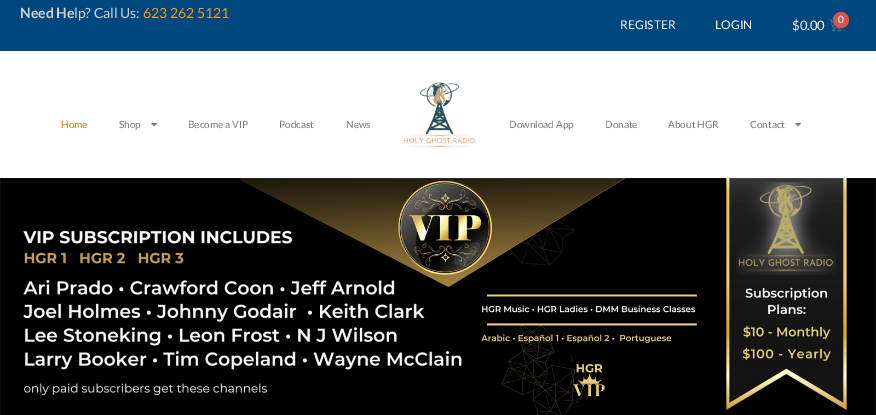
%!PS-Adobe-3.0
%%BoundingBox: 0 0 876 415
%%LanguageLevel: 3
%%Pages: 1
%%EndComments
%%BeginProlog
/setink { dup -16 bitshift 255 div exch dup -8 bitshift 255 and 255 div exch 255 and 255 div setrgbcolor } def
/usefont { [ exch dup neg 0 0 3 -1 roll 0 0 ] selectfont } def
/disc { newpath 0 360 arc closepath } def
/drawimage { 5 dict begin { /h /w /y /x /name } { exch def } forall
  gsave x y translate w h scale
  w h 8 [w 0 0 h 0 0] name (r) file false 3 colorimage grestore end } def
%%EndProlog
%%BeginSetup
<< /PageSize [876 415] >> setpagedevice
%%EndSetup
%%Page: 1 1
0 415 translate 1 -1 scale
4 setmiterlimit
16#FFFFFF setink
0 0 876 415 rectfill
16#00467F setink
0 0 876 51 rectfill
/Lato-Bold 14 usefont
16#D3D3D3 setink
20 18 moveto (Need He) show
/Lato-Regular 14 usefont
74 18 moveto (lp? Call Us:) show
16#FF9900 setink
143 18 moveto (623 262 5121) show
/Lato-Regular 12 usefont
16#F5F5F5 setink
620 29 moveto (REGISTER) show
715 29 moveto (LOGIN) show
/Lato-Regular 13 usefont
16#FFFFFF setink
792 30 moveto ($0.00) show
(img1.raw) 829 19 12 13 drawimage
16#D9534F setink
841 20 8 disc fill
/Lato-Regular 10 usefont
16#FFFFFF setink
838 23 moveto (0) show
16#C27B13 setink
61 128 moveto (Home) show
16#7A7A7A setink
119 128 moveto (Shop) show
(img2.raw) 151 123 6 4 drawimage
[
    [(Become a VIP) 188 128]
    [(Podcast) 279 128]
    [(News) 346 128]
] { aload pop moveto show } forall
(img3.raw) 404 82 72 66 drawimage
[
    [(Download App) 509 128]
    [(Donate) 605 128]
    [(About HGR) 668 128]
    [(Contact) 750 128]
] { aload pop moveto show } forall
(img2.raw) 795 123 6 4 drawimage
(img4.raw) 0 178 876 237 drawimage
showpage
%%EOF
